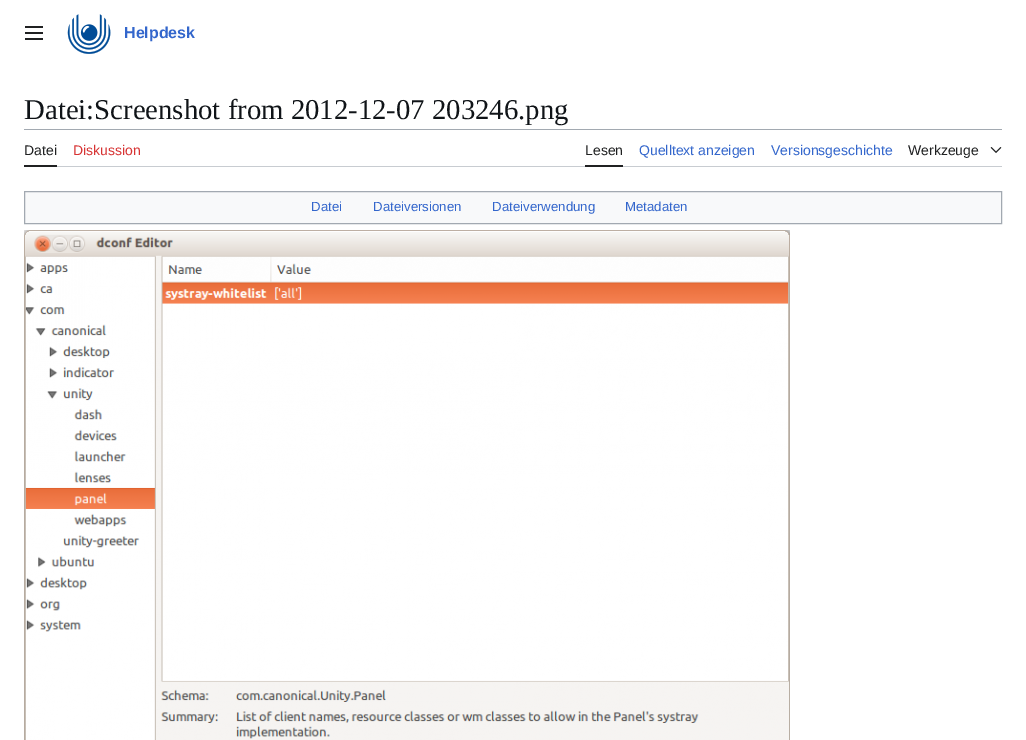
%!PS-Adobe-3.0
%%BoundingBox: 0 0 1026 740
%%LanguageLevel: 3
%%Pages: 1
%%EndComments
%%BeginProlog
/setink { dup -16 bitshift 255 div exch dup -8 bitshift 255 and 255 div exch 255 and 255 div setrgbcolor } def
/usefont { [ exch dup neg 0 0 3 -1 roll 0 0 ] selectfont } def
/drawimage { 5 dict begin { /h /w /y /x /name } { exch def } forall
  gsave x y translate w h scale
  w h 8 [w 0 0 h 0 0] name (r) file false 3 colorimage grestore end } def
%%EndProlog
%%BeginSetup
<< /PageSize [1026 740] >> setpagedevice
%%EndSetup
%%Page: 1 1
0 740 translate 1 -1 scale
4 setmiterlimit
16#FFFFFF setink
0 0 1026 740 rectfill
(img1.raw) 25 26 18 14 drawimage
(img2.raw) 67 14 44 40 drawimage
/LiberationSans-Bold 16 usefont
16#3366CC setink
124 38 moveto (Helpdesk) show
/LiberationSerif-Regular 28.75 usefont
16#101418 setink
24 119 moveto (Datei:Screenshot from 2012-12-07 203246.png) show
[
    [24 129 978 1 16#A2A9B1]
    [57 166 945 1 16#C8CCD1]
    [24 165 33 2 16#202122]
] { aload pop setink rectfill } forall
/LiberationSans-Regular 14 usefont
24 155 moveto (Datei) show
16#D73333 setink
73 155 moveto (Diskussion) show
16#202122 setink
585 165 38 2 rectfill
585 155 moveto (Lesen) show
16#3366CC setink
639 155 moveto (Quelltext anzeigen) show
771 155 moveto (Versionsgeschichte) show
16#202122 setink
908 155 moveto (Werkzeuge) show
(img3.raw) 990 147 12 6 drawimage
16#F8F9FA setink
24.5 191.5 moveto 1001.5 191.5 lineto 1001.5 223.5 lineto 24.5 223.5 lineto closepath gsave fill grestore
16#A2A9B1 setink
stroke
/LiberationSans-Regular 13.25 usefont
16#3366CC setink
[
    [(Datei) 311 211]
    [(Dateiversionen) 373 211]
    [(Dateiverwendung) 492 211]
    [(Metadaten) 625 211]
] { aload pop moveto show } forall
(img4.raw) 24 230 766 510 drawimage
showpage
%%EOF
